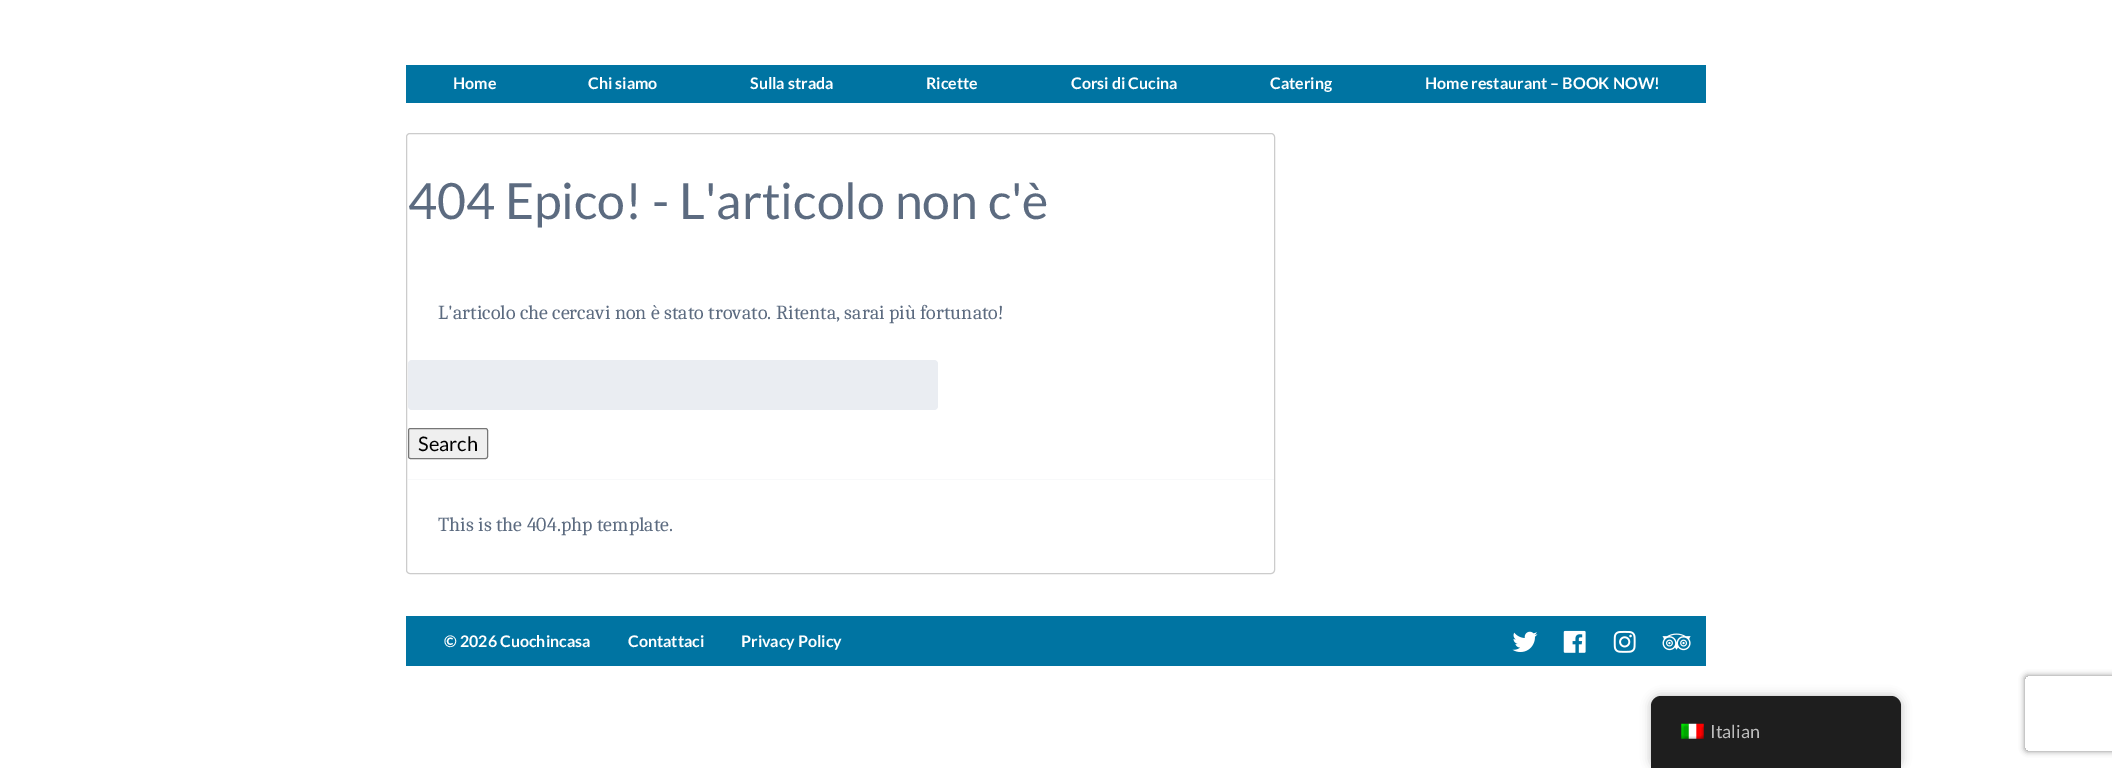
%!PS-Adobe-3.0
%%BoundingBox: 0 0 2112 768
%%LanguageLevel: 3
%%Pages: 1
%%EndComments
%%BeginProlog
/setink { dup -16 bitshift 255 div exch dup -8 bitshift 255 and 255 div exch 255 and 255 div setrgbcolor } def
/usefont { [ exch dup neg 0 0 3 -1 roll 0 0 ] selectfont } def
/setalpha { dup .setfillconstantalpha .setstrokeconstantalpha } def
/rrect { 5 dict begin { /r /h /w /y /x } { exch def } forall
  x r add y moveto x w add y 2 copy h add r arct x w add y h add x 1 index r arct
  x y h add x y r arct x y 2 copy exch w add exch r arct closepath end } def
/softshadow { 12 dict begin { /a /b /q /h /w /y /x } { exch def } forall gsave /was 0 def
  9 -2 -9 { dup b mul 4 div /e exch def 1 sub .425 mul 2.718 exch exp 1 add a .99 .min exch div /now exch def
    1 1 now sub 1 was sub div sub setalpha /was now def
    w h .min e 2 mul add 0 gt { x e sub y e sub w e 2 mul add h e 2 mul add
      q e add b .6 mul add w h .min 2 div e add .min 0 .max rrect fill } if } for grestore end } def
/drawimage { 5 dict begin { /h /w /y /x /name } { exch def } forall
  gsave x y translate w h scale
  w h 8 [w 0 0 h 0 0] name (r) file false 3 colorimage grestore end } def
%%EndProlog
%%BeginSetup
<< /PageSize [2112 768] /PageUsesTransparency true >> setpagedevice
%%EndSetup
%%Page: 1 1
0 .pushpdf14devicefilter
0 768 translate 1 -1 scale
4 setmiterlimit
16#FFFFFF setink
0 0 2112 768 rectfill
16#0074A2 setink
406 65 1300 38 rectfill
/Lato-Bold 16 usefont
16#FFFFFF setink
[
    [(Home) 453 89]
    [(Chi siamo) 588 89]
    [(Sulla strada) 750 89]
    [(Ricette) 926 89]
    [(Corsi di Cucina) 1071 89]
    [(Catering) 1270 89]
    [(Home restaurant – BOOK NOW!) 1425 89]
] { aload pop moveto show } forall
16#CCCCCC setink
406.5 133.5 868 440 3.5 rrect stroke
/Lato-Regular 50 usefont
16#5C6B80 setink
408 219 moveto (404 Epico! - L'articolo non c'è) show
/Caladea-Regular 20 usefont
438 319 moveto (L'articolo che cercavi non è stato trovato. Ritenta, sarai più fortunato!) show
16#EAEDF2 setink
408 360 530 50 4 rrect fill
16#EFEFEF setink
408.5 428.5 79 30 2 rrect gsave fill grestore
16#767676 setink
stroke
/Lato-Regular 20 usefont
16#000000 setink
418 451 moveto (Search) show
16#F8F9FA setink
408 479 866 1 rectfill
/Caladea-Regular 20 usefont
16#5C6B80 setink
438 531 moveto (This is the 404.php template.) show
16#0074A2 setink
406 616 1300 50 rectfill
/Lato-Bold 16 usefont
16#FFFFFF setink
[
    [(© 2026 Cuochincasa) 444 647]
    [(Contattaci) 628 647]
    [(Privacy Policy) 741 647]
] { aload pop moveto show } forall
(img1.raw) 1512 631 26 21 drawimage
(img2.raw) 1563 630 23 23 drawimage
(img3.raw) 1613 630 23 23 drawimage
(img4.raw) 1662 633 29 18 drawimage
16#000000 setink
1651 696 250 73 10 5 0.25 softshadow
16#1E1E1E setink
1661 696 moveto 1891 696 lineto 1896.5 696 1901 700.5 1901 706 curveto 1901 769 lineto 1651 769 lineto 1651 706 lineto 1651 700.5 1655.5 696 1661 696 curveto closepath fill
(img5.raw) 1681 723 23 16 drawimage
/Lato-Regular 18 usefont
16#BDBDBD setink
1710 738 moveto (Italian) show
gsave
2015 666 moveto 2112 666 lineto 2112 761 lineto 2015 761 lineto closepath 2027.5 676 moveto 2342.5 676 lineto 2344 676 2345 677 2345 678.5 curveto 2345 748.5 lineto 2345 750 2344 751 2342.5 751 curveto 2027.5 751 lineto 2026 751 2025 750 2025 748.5 curveto 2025 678.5 lineto 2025 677 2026 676 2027.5 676 curveto closepath eoclip newpath
16#808080 setink
2025 676 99 75 2.5 3 1 softshadow
grestore
.poppdf14devicefilter showpage
%%EOF
